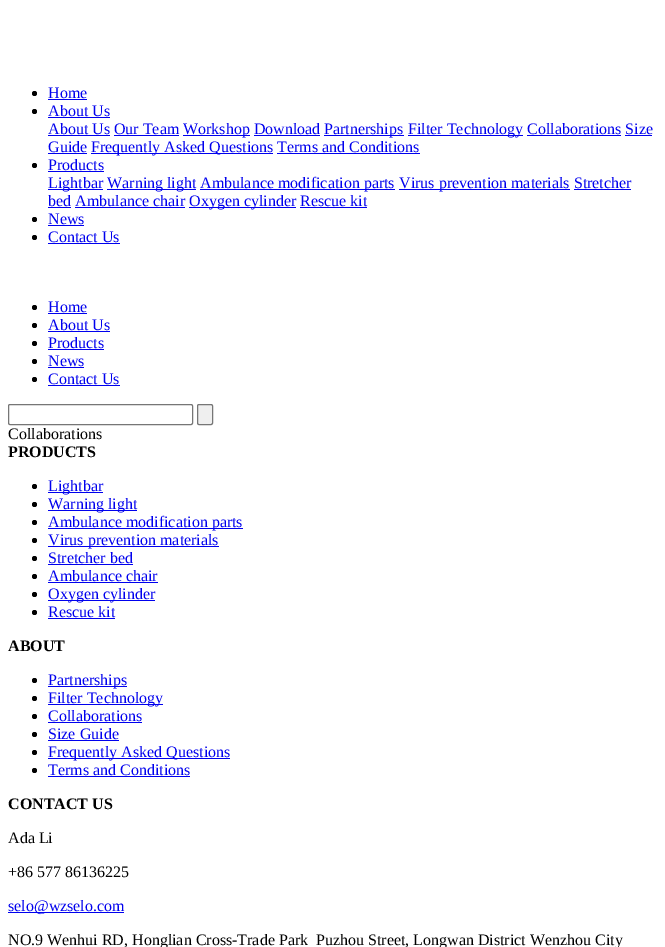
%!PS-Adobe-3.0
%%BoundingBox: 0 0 665 947
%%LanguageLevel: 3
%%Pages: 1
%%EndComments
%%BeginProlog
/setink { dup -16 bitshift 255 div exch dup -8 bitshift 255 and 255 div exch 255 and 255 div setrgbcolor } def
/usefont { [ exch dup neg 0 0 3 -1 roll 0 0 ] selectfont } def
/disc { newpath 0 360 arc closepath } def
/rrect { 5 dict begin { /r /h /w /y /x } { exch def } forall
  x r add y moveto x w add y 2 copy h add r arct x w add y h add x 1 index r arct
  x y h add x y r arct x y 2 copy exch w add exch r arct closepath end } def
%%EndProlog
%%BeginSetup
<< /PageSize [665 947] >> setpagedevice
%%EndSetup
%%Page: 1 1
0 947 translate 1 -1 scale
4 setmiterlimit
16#FFFFFF setink
0 0 665 947 rectfill
16#000000 setink
34.5 93.5 2.5 disc fill
/LiberationSerif-Regular 16 usefont
16#0000EE setink
48 98 moveto (Home) show
48 99 39 1 rectfill
16#000000 setink
34.5 111.5 2.5 disc fill
16#0000EE setink
48 116 moveto (About Us) show
48 117 62 1 rectfill
48 134 moveto (About Us Our Team) show
48 135 62 1 rectfill
183 135 67 1 rectfill
183 134 moveto (Workshop Download) show
324 135 80 1 rectfill
324 134 moveto (Partnerships) show
408 135 115 1 rectfill
408 134 moveto (Filter Technology Collaborations Size) show
[
    [114 135 65 1 16#0000EE]
    [254 135 66 1 16#0000EE]
    [527 135 94 1 16#0000EE]
] { aload pop setink rectfill } forall
48 152 moveto (Guide) show
[
    [625 135 27 1 16#0000EE]
    [48 153 39 1 16#0000EE]
    [91 153 182 1 16#0000EE]
] { aload pop setink rectfill } forall
91 152 moveto (Frequently Asked Questions Terms and Conditions) show
277 153 143 1 rectfill
16#000000 setink
34.5 165.5 2.5 disc fill
16#0000EE setink
48 170 moveto (Products) show
48 171 56 1 rectfill
48 189 55 1 rectfill
48 188 moveto (Lightbar) show
107 189 89 1 rectfill
107 188 moveto (Warning light) show
200 189 195 1 rectfill
200 188 moveto (Ambulance modification parts) show
399 189 171 1 rectfill
399 188 moveto (Virus prevention materials Stretcher) show
48 206 moveto (bed Ambulance chair) show
[
    [574 189 57 1 16#0000EE]
    [48 207 23 1 16#0000EE]
    [189 207 107 1 16#0000EE]
] { aload pop setink rectfill } forall
189 206 moveto (Oxygen cylinder Rescue kit) show
75 207 110 1 rectfill
300 207 67 1 rectfill
16#000000 setink
34.5 219.5 2.5 disc fill
16#0000EE setink
48 224 moveto (News) show
48 225 36 1 rectfill
16#000000 setink
34.5 237.5 2.5 disc fill
16#0000EE setink
48 242 moveto (Contact Us) show
48 243 72 1 rectfill
16#000000 setink
34.5 307.5 2.5 disc fill
16#0000EE setink
48 312 moveto (Home) show
48 313 39 1 rectfill
16#000000 setink
34.5 325.5 2.5 disc fill
16#0000EE setink
48 330 moveto (About Us) show
48 331 62 1 rectfill
16#000000 setink
34.5 343.5 2.5 disc fill
16#0000EE setink
48 348 moveto (Products) show
48 349 56 1 rectfill
16#000000 setink
34.5 361.5 2.5 disc fill
16#0000EE setink
48 366 moveto (News) show
48 367 36 1 rectfill
16#000000 setink
34.5 379.5 2.5 disc fill
16#0000EE setink
48 384 moveto (Contact Us) show
48 385 72 1 rectfill
16#767676 setink
8.5 404.5 184 20 1.5 rrect stroke
16#EFEFEF setink
197.5 404.5 15 20 1.5 rrect gsave fill grestore
16#767676 setink
stroke
16#000000 setink
8 439 moveto (Collaborations) show
/LiberationSerif-Bold 16 usefont
8 457 moveto (PRODUCTS) show
34.5 486.5 2.5 disc fill
16#0000EE setink
48 492 55 1 rectfill
/LiberationSerif-Regular 16 usefont
48 491 moveto (Lightbar) show
16#000000 setink
34.5 504.5 2.5 disc fill
16#0000EE setink
48 510 89 1 rectfill
48 509 moveto (Warning light) show
16#000000 setink
34.5 522.5 2.5 disc fill
16#0000EE setink
48 528 195 1 rectfill
48 527 moveto (Ambulance modification parts) show
16#000000 setink
34.5 540.5 2.5 disc fill
16#0000EE setink
48 546 171 1 rectfill
48 545 moveto (Virus prevention materials) show
16#000000 setink
34.5 558.5 2.5 disc fill
16#0000EE setink
48 563 moveto (Stretcher bed) show
48 564 85 1 rectfill
16#000000 setink
34.5 576.5 2.5 disc fill
16#0000EE setink
48 581 moveto (Ambulance chair) show
48 582 110 1 rectfill
16#000000 setink
34.5 594.5 2.5 disc fill
16#0000EE setink
48 600 107 1 rectfill
48 599 moveto (Oxygen cylinder) show
16#000000 setink
34.5 612.5 2.5 disc fill
16#0000EE setink
48 617 moveto (Rescue kit) show
48 618 67 1 rectfill
/LiberationSerif-Bold 16 usefont
16#000000 setink
8 651 moveto (ABOUT) show
34.5 680.5 2.5 disc fill
16#0000EE setink
48 686 79 1 rectfill
/LiberationSerif-Regular 16 usefont
48 685 moveto (Partnerships) show
16#000000 setink
34.5 698.5 2.5 disc fill
16#0000EE setink
48 704 115 1 rectfill
48 703 moveto (Filter Technology) show
16#000000 setink
34.5 716.5 2.5 disc fill
16#0000EE setink
48 721 moveto (Collaborations) show
48 722 94 1 rectfill
16#000000 setink
34.5 734.5 2.5 disc fill
16#0000EE setink
48 739 moveto (Size Guide) show
48 740 71 1 rectfill
16#000000 setink
34.5 752.5 2.5 disc fill
16#0000EE setink
48 758 182 1 rectfill
48 757 moveto (Frequently Asked Questions) show
16#000000 setink
34.5 770.5 2.5 disc fill
16#0000EE setink
48 775 moveto (Terms and Conditions) show
48 776 142 1 rectfill
/LiberationSerif-Bold 16 usefont
16#000000 setink
8 809 moveto (CONTACT US) show
/LiberationSerif-Regular 16 usefont
8 843 moveto (Ada Li) show
8 877 moveto (+86 577 86136225) show
16#0000EE setink
8 912 116 1 rectfill
8 911 moveto (selo@wzselo.com) show
16#000000 setink
8 945 moveto (NO.9 Wenhui RD, Honglian Cross-Trade Park  Puzhou Street, Longwan District Wenzhou City) show
showpage
%%EOF
